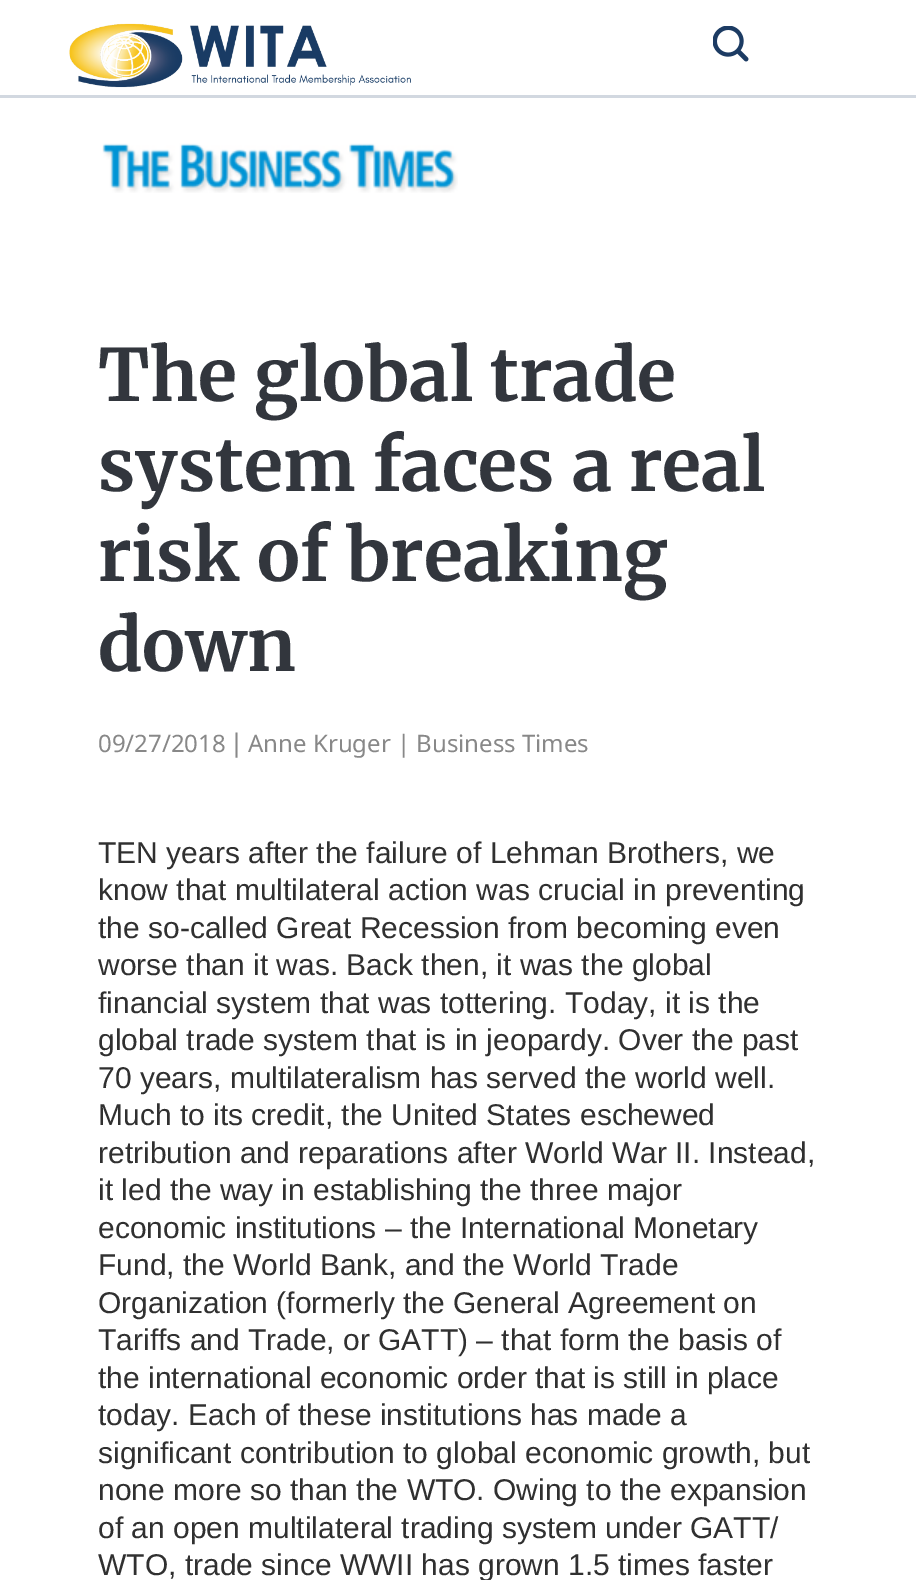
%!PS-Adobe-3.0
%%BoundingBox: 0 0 916 1580
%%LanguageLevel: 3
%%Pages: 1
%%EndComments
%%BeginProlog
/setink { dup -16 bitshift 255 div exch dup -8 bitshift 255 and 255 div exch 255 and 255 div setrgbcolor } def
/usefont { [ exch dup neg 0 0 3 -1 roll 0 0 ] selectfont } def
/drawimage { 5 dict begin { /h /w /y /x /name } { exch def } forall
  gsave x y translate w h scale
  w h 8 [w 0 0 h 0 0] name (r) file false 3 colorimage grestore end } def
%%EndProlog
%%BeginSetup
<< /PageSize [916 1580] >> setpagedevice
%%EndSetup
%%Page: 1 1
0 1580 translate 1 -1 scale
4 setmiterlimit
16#FFFFFF setink
0 0 916 1580 rectfill
16#D2D8E0 setink
0 95 916 3 rectfill
(img1.raw) 69 23 342 65 drawimage
(img2.raw) 713 26 36 36 drawimage
(img3.raw) 102 143 356 50 drawimage
/Merriweather-Bold 72 usefont
16#32363D setink
[
    [(The global trade) 98 401]
    [(system faces a real) 98 491]
    [(risk of breaking) 98 581]
    [(down) 98 671]
] { aload pop moveto show } forall
/NotoSans-Regular 24 usefont
16#888888 setink
98 752 moveto (09/27/2018) show
/LiberationSans-Regular 27 usefont
233 752 moveto (|) show
/NotoSans-Regular 24 usefont
248 752 moveto (Anne Kruger | Business Times) show
/LiberationSans-Regular 30 usefont
16#303030 setink
[
    [(TEN years after the failure of Lehman Brothers, we) 98 863]
    [(know that multilateral action was crucial in preventing) 98 900]
    [(the so-called Great Recession from becoming even) 98 938]
    [(worse than it was. Back then, it was the global) 98 975]
    [(financial system that was tottering. Today, it is the) 98 1013]
    [(global trade system that is in jeopardy. Over the past) 98 1050]
    [(70 years, multilateralism has served the world well.) 98 1088]
    [(Much to its credit, the United States eschewed) 98 1125]
    [(retribution and reparations after World War II. Instead,) 98 1163]
    [(it led the way in establishing the three major) 98 1200]
    [(economic institutions – the International Monetary) 98 1238]
    [(Fund, the World Bank, and the World Trade) 98 1275]
    [(Organization \(formerly the General Agreement on) 98 1313]
    [(Tariffs and Trade, or GATT\) – that form the basis of) 98 1350]
    [(the international economic order that is still in place) 98 1388]
    [(today. Each of these institutions has made a) 98 1425]
    [(significant contribution to global economic growth, but) 98 1463]
    [(none more so than the WTO. Owing to the expansion) 98 1500]
    [(of an open multilateral trading system under GATT/) 98 1538]
    [(WTO, trade since WWII has grown 1.5 times faster) 98 1575]
] { aload pop moveto show } forall
showpage
%%EOF
